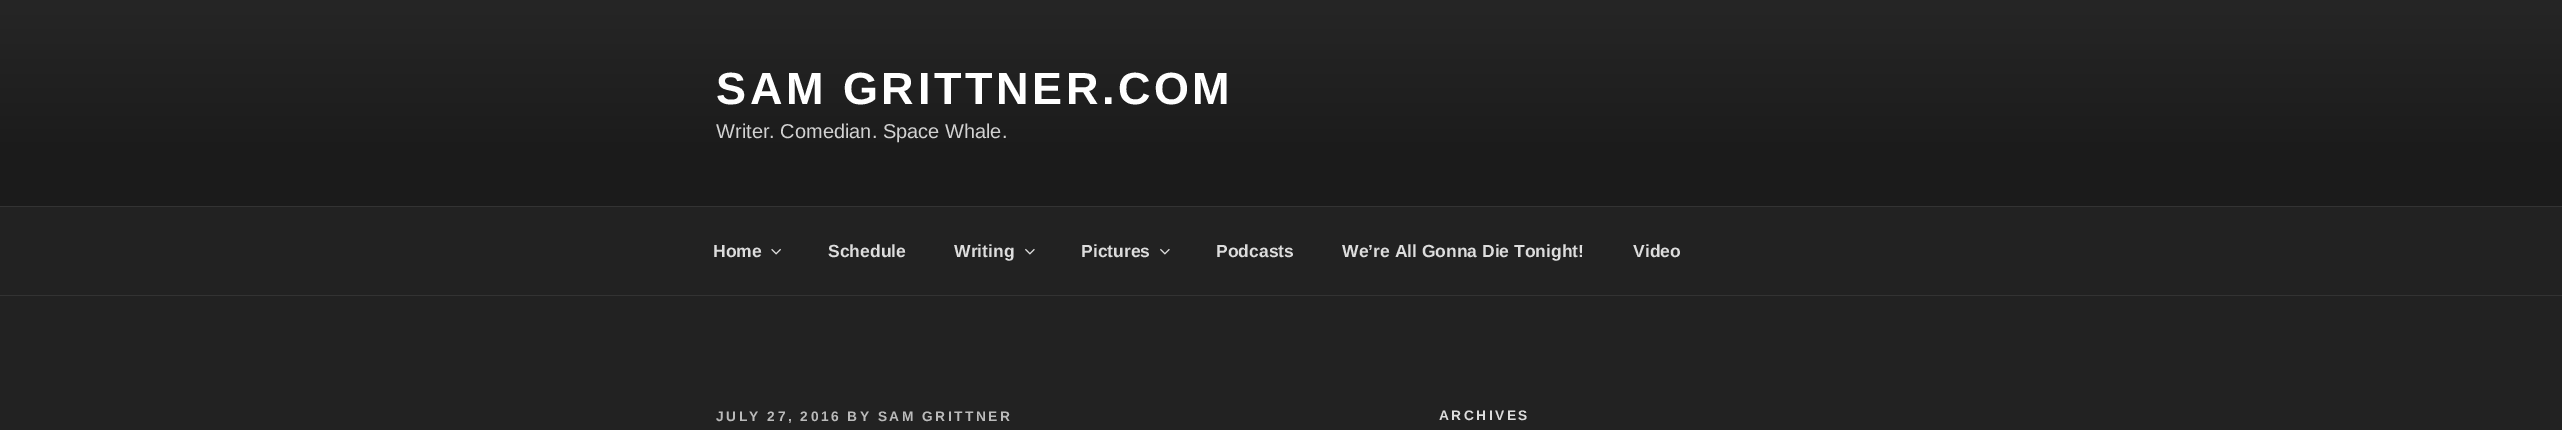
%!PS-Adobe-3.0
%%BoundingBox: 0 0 2562 430
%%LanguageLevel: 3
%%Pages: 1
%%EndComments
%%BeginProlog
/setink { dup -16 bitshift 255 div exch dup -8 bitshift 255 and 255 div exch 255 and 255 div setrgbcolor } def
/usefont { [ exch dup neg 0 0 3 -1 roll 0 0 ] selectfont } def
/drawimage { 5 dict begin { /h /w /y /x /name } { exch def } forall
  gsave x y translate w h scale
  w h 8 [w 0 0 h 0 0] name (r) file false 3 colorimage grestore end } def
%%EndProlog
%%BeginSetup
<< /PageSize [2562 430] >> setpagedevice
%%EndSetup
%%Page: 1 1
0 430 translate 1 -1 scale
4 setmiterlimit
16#222222 setink
0 0 2562 430 rectfill
gsave 0 0 moveto 2562 0 lineto 2562 206 lineto 0 206 lineto closepath clip newpath
<< /ShadingType 2 /ColorSpace /DeviceRGB /Coords [1281 0 1281 206] /Extend [true true] /Function << /FunctionType 3 /Domain [0 1] /Functions [<< /FunctionType 2 /Domain [0 1] /C0 [0.149 0.149 0.149] /C1 [0.106 0.106 0.106] /N 1 >> << /FunctionType 2 /Domain [0 1] /C0 [0.106 0.106 0.106] /C1 [0.106 0.106 0.106] /N 1 >>] /Bounds [0.75] /Encode [0 1 0 1] >> >> shfill grestore
/LiberationSans-Bold 45 usefont
16#FFFFFF setink
716 104 moveto 3.6 0 (SAM GRITTNER.COM) ashow
/LiberationSans-Regular 20 usefont
16#D2D2D2 setink
716 138 moveto (Writer. Comedian. Space Whale.) show
16#333333 setink
0 206 2562 1 rectfill
0 295 2562 1 rectfill
/LiberationSans-Bold 17.5 usefont
16#DDDDDD setink
713 257 moveto (Home) show
(img1.raw) 771 248 10 7 drawimage
828 257 moveto (Schedule) show
954 257 moveto (Writing) show
(img2.raw) 1025 248 10 7 drawimage
1081 257 moveto (Pictures) show
(img2.raw) 1160 248 10 7 drawimage
[
    [(Podcasts) 1216 257]
    [(We’re All Gonna Die Tonight!) 1342 257]
    [(Video) 1633 257]
] { aload pop moveto show } forall
/LiberationSans-Bold 13.75 usefont
16#BBBBBB setink
716 421 moveto 2.5 0 (JULY 27, 2016 BY SAM GRITTNER) ashow
16#DDDDDD setink
1439 420 moveto 2.5 0 (ARCHIVES) ashow
showpage
%%EOF
